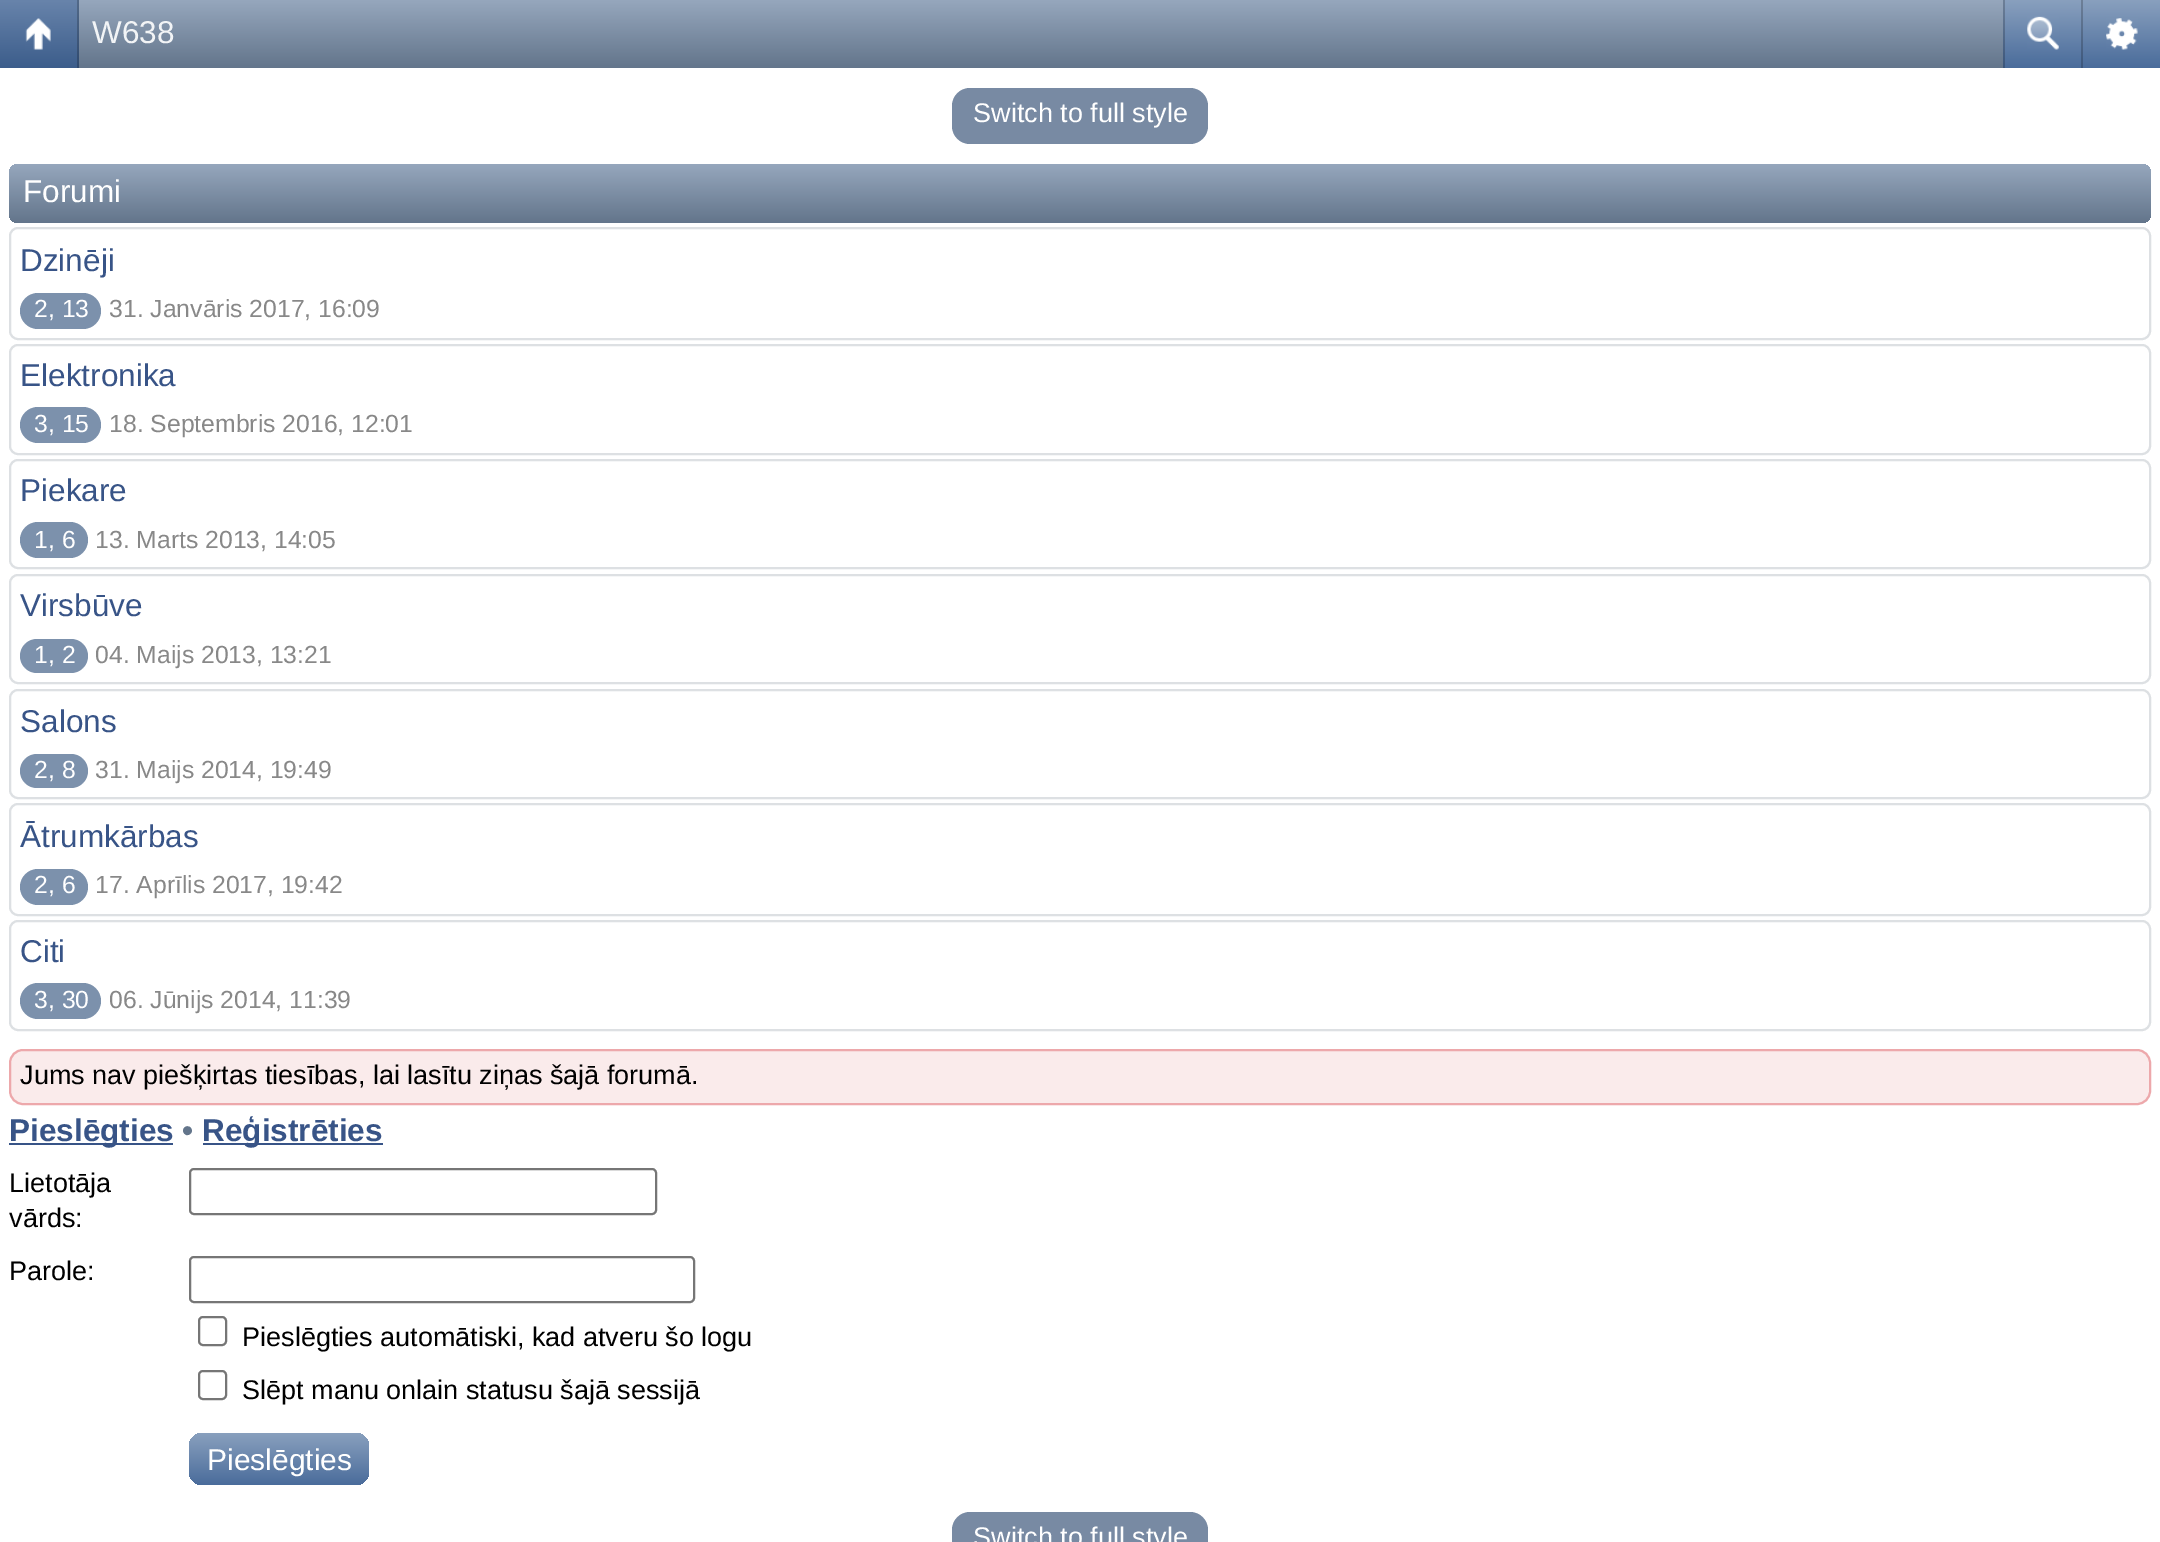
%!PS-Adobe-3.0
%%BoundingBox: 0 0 2160 1542
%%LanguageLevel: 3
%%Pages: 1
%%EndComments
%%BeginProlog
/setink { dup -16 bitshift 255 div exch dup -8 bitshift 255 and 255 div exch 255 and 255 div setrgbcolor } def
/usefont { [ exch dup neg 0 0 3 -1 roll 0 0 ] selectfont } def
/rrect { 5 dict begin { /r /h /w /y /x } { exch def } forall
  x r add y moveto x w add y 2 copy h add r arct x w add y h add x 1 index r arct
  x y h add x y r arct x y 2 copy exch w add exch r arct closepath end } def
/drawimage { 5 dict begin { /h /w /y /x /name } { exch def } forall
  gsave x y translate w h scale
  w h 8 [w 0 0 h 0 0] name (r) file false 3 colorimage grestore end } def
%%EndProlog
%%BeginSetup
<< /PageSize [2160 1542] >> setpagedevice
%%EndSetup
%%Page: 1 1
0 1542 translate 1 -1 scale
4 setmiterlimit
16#FFFFFF setink
0 0 2160 1542 rectfill
gsave 79 0 moveto 2003 0 lineto 2003 68 lineto 79 68 lineto closepath clip newpath
<< /ShadingType 2 /ColorSpace /DeviceRGB /Coords [1080 0 1080 68] /Extend [true true] /Function << /FunctionType 2 /Domain [0 1] /C0 [0.588 0.655 0.741] /C1 [0.388 0.459 0.545] /N 1 >> >> shfill grestore
gsave 0 0 moveto 77 0 lineto 77 68 lineto 0 68 lineto closepath clip newpath
<< /ShadingType 2 /ColorSpace /DeviceRGB /Coords [39 0 39 68] /Extend [true true] /Function << /FunctionType 2 /Domain [0 1] /C0 [0.408 0.518 0.671] /C1 [0.235 0.365 0.545] /N 1 >> >> shfill grestore
gsave 77 0 moveto 79 0 lineto 79 68 lineto 77 68 lineto closepath clip newpath
<< /ShadingType 2 /ColorSpace /DeviceRGB /Coords [39 0 39 68] /Extend [true true] /Function << /FunctionType 2 /Domain [0 1] /C0 [0.325 0.416 0.537] /C1 [0.188 0.29 0.435] /N 1 >> >> shfill grestore
(img1.raw) 25 18 26 32 drawimage
/LiberationSans-Regular 31.5 usefont
16#F2F4F6 setink
92 43 moveto (W638) show
gsave 2005 0 moveto 2081 0 lineto 2081 68 lineto 2005 68 lineto closepath clip newpath
<< /ShadingType 2 /ColorSpace /DeviceRGB /Coords [2042 0 2042 68] /Extend [true true] /Function << /FunctionType 2 /Domain [0 1] /C0 [0.537 0.627 0.745] /C1 [0.29 0.424 0.608] /N 1 >> >> shfill grestore
gsave 2003 0 moveto 2005 0 lineto 2005 68 lineto 2003 68 lineto closepath clip newpath
<< /ShadingType 2 /ColorSpace /DeviceRGB /Coords [2042 0 2042 68] /Extend [true true] /Function << /FunctionType 2 /Domain [0 1] /C0 [0.431 0.502 0.596] /C1 [0.231 0.337 0.486] /N 1 >> >> shfill grestore
(img2.raw) 2027 16 32 34 drawimage
gsave 2083 0 moveto 2160 0 lineto 2160 68 lineto 2083 68 lineto closepath clip newpath
<< /ShadingType 2 /ColorSpace /DeviceRGB /Coords [2121 0 2121 68] /Extend [true true] /Function << /FunctionType 2 /Domain [0 1] /C0 [0.537 0.627 0.745] /C1 [0.29 0.424 0.608] /N 1 >> >> shfill grestore
gsave 2081 0 moveto 2083 0 lineto 2083 68 lineto 2081 68 lineto closepath clip newpath
<< /ShadingType 2 /ColorSpace /DeviceRGB /Coords [2121 0 2121 68] /Extend [true true] /Function << /FunctionType 2 /Domain [0 1] /C0 [0.431 0.502 0.596] /C1 [0.231 0.337 0.486] /N 1 >> >> shfill grestore
(img3.raw) 2106 18 32 32 drawimage
16#788AA3 setink
952 88 256 56 18 rrect fill
/LiberationSans-Regular 27 usefont
16#FFFFFF setink
973 122 moveto (Switch to full style) show
gsave 9 164 2142 59 9 rrect clip newpath
<< /ShadingType 2 /ColorSpace /DeviceRGB /Coords [1080 164 1080 223] /Extend [true true] /Function << /FunctionType 2 /Domain [0 1] /C0 [0.588 0.655 0.741] /C1 [0.388 0.459 0.545] /N 1 >> >> shfill grestore
/LiberationSans-Regular 31.5 usefont
23 202 moveto (Forumi) show
16#DDE0E3 setink
2 setlinewidth
10 228 2140 111 8 rrect stroke
16#385487 setink
20 271 moveto (Dzinēji) show
16#7C91AC setink
20 293 81 36 18 rrect fill
/LiberationSans-Regular 24.75 usefont
16#FFFFFF setink
34 317 moveto (2, 13) show
16#888888 setink
109 317 moveto (31. Janvāris 2017, 16:09) show
16#DDE0E3 setink
10 345 2140 109 8 rrect stroke
/LiberationSans-Regular 31.5 usefont
16#385487 setink
20 386 moveto (Elektronika) show
16#7C91AC setink
20 407 81 36 18 rrect fill
/LiberationSans-Regular 24.75 usefont
16#FFFFFF setink
34 432 moveto (3, 15) show
16#888888 setink
109 432 moveto (18. Septembris 2016, 12:01) show
16#DDE0E3 setink
10 460 2140 108 8 rrect stroke
/LiberationSans-Regular 31.5 usefont
16#385487 setink
20 501 moveto (Piekare) show
16#7C91AC setink
20 522 68 36 18 rrect fill
/LiberationSans-Regular 24.75 usefont
16#FFFFFF setink
34 548 moveto (1, 6) show
16#888888 setink
95 548 moveto (13. Marts 2013, 14:05) show
16#DDE0E3 setink
10 575 2140 108 8 rrect stroke
/LiberationSans-Regular 31.5 usefont
16#385487 setink
20 616 moveto (Virsbūve) show
16#7C91AC setink
20 639 68 34 17 rrect fill
/LiberationSans-Regular 24.75 usefont
16#FFFFFF setink
34 663 moveto (1, 2) show
16#888888 setink
95 663 moveto (04. Maijs 2013, 13:21) show
16#DDE0E3 setink
10 690 2140 108 8 rrect stroke
/LiberationSans-Regular 31.5 usefont
16#385487 setink
20 732 moveto (Salons) show
16#7C91AC setink
20 754 68 34 17 rrect fill
/LiberationSans-Regular 24.75 usefont
16#FFFFFF setink
34 778 moveto (2, 8) show
16#888888 setink
95 778 moveto (31. Maijs 2014, 19:49) show
16#DDE0E3 setink
10 804 2140 111 8 rrect stroke
/LiberationSans-Regular 31.5 usefont
16#385487 setink
20 847 moveto (Ātrumkārbas) show
16#7C91AC setink
20 869 68 36 18 rrect fill
/LiberationSans-Regular 24.75 usefont
16#FFFFFF setink
34 893 moveto (2, 6) show
16#888888 setink
95 893 moveto (17. Aprīlis 2017, 19:42) show
16#DDE0E3 setink
10 921 2140 109 8 rrect stroke
/LiberationSans-Regular 31.5 usefont
16#385487 setink
20 962 moveto (Citi) show
16#7C91AC setink
20 983 81 36 18 rrect fill
/LiberationSans-Regular 24.75 usefont
16#FFFFFF setink
34 1008 moveto (3, 30) show
16#888888 setink
109 1008 moveto (06. Jūnijs 2014, 11:39) show
16#FAEBEB setink
10 1050 2140 54 13 rrect gsave fill grestore
16#EDA8AB setink
stroke
/LiberationSans-Regular 27 usefont
16#000000 setink
20 1084 moveto (Jums nav piešķirtas tiesības, lai lasītu ziņas šajā forumā.) show
16#385487 setink
9 1143 164 2 rectfill
/LiberationSans-Bold 31.5 usefont
9 1141 moveto (Pieslēgties) show
16#63758B setink
182 1141 moveto (•) show
16#385487 setink
203 1143 180 2 rectfill
202 1141 moveto (Reģistrēties) show
/LiberationSans-Regular 27 usefont
16#000000 setink
9 1192 moveto (Lietotāja) show
9 1227 moveto (vārds:) show
16#767676 setink
190 1169 466 45 4 rrect stroke
16#000000 setink
9 1280 moveto (Parole:) show
16#767676 setink
190 1257 504 45 4 rrect stroke
199 1317 27 28 4 rrect stroke
16#000000 setink
242 1346 moveto (Pieslēgties automātiski, kad atveru šo logu) show
16#767676 setink
199 1371 27 28 4 rrect stroke
16#000000 setink
242 1399 moveto (Slēpt manu onlain statusu šajā sessijā) show
gsave 189 1433 180 52 14 rrect clip newpath
<< /ShadingType 2 /ColorSpace /DeviceRGB /Coords [279 1433 279 1485] /Extend [true true] /Function << /FunctionType 2 /Domain [0 1] /C0 [0.537 0.627 0.745] /C1 [0.29 0.424 0.608] /N 1 >> >> shfill grestore
/LiberationSans-Regular 30 usefont
16#FFFFFF setink
207 1470 moveto (Pieslēgties) show
16#788AA3 setink
952 1512 256 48 18 rrect fill
/LiberationSans-Regular 27 usefont
16#FFFFFF setink
973 1546 moveto (Switch to full style) show
showpage
%%EOF
